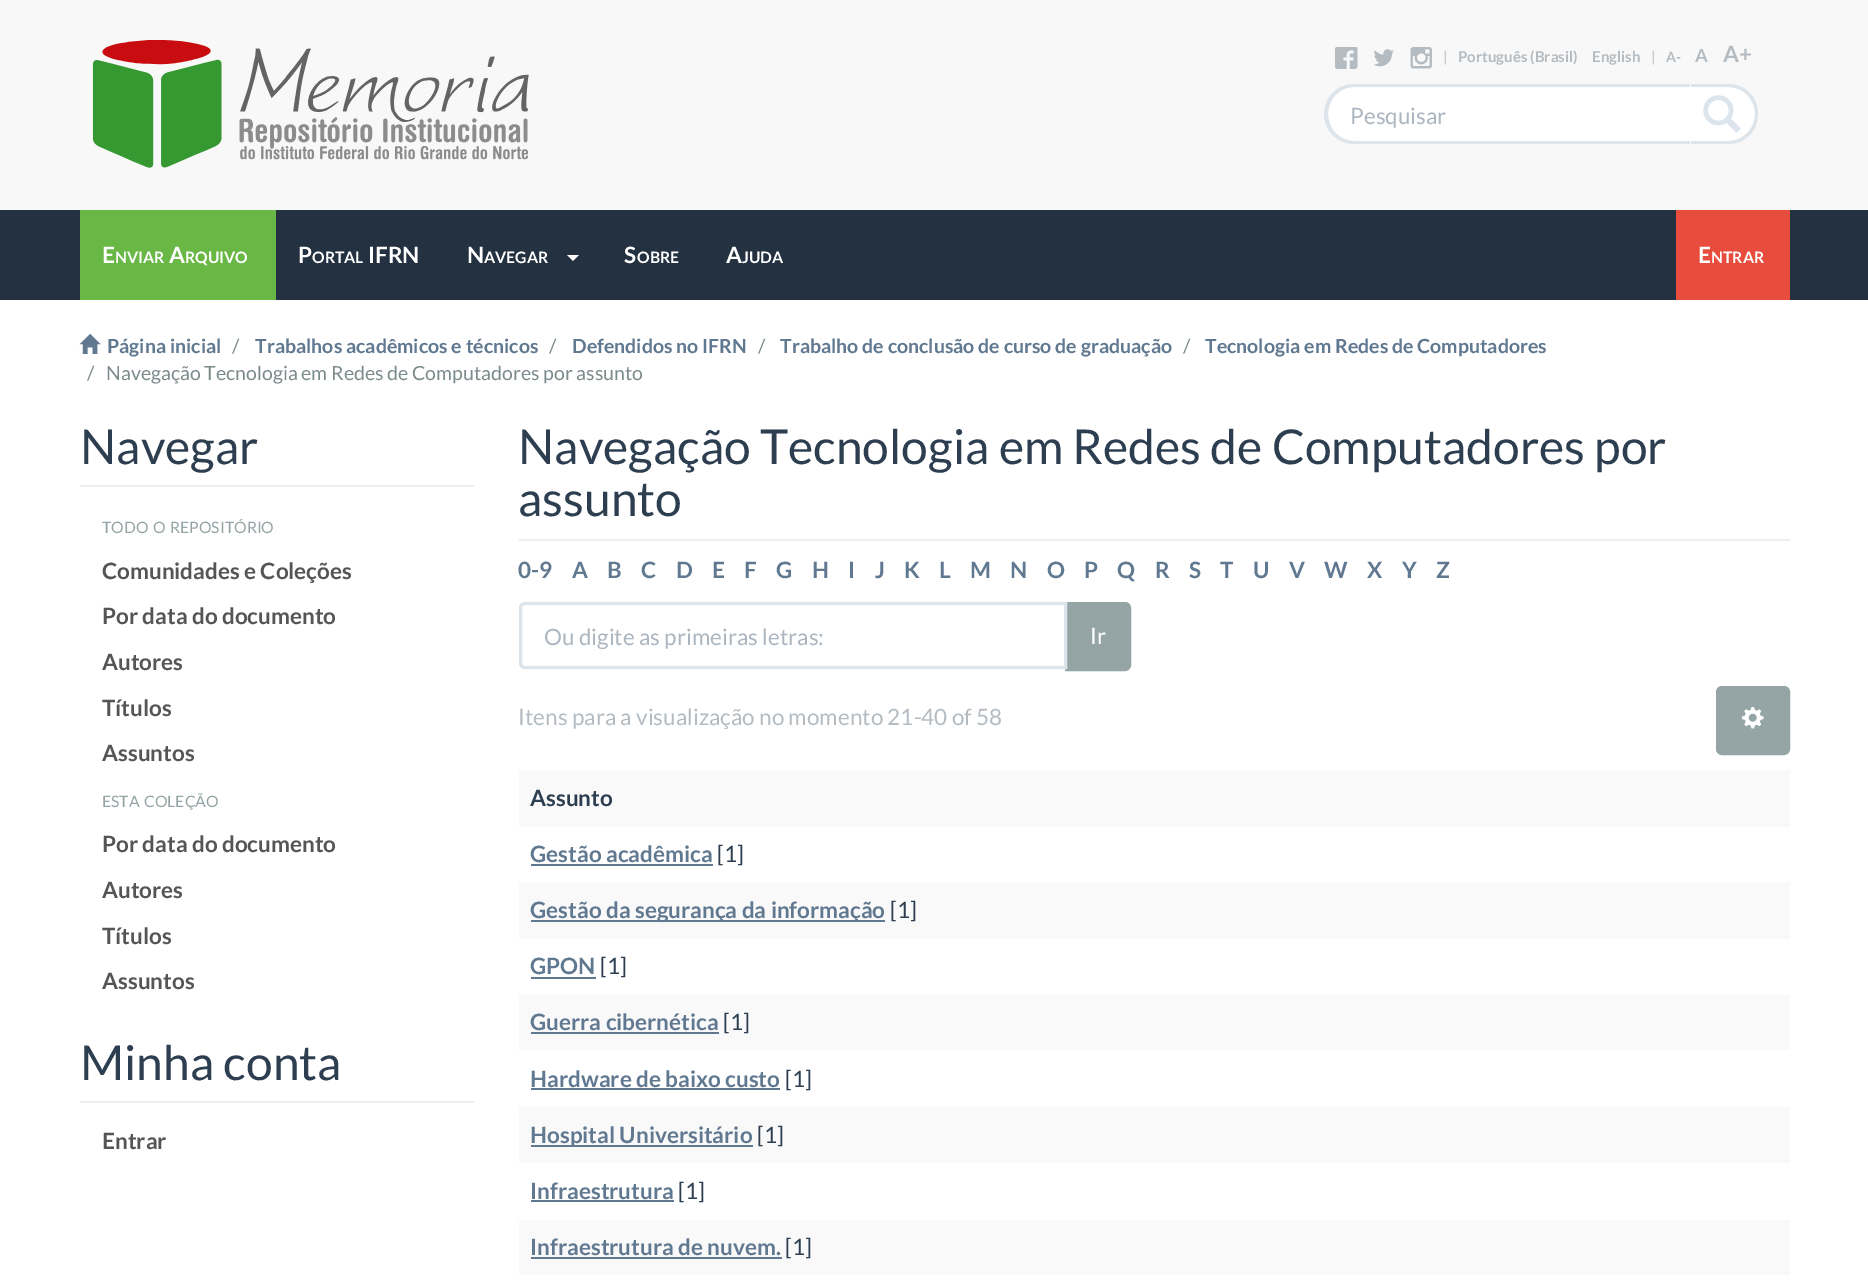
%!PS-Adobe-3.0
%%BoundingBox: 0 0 1868 1287
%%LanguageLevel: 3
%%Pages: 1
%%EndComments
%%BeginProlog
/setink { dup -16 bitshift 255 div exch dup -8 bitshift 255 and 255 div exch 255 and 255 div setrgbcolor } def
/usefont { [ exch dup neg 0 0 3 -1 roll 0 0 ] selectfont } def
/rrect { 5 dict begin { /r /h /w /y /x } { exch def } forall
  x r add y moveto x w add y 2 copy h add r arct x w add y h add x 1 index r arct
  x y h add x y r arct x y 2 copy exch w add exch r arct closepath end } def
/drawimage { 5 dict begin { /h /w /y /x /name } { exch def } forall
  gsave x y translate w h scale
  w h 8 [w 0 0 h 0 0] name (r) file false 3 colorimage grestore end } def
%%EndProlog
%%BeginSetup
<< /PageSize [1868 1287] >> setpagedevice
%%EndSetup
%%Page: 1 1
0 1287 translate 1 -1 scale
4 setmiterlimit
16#FFFFFF setink
0 0 1868 1287 rectfill
16#F8F8F8 setink
0 0 1868 210 rectfill
(img1.raw) 92 40 437 128 drawimage
(img2.raw) 1335 47 23 22 drawimage
(img3.raw) 1373 49 21 18 drawimage
(img4.raw) 1410 47 22 22 drawimage
/Lato-Regular 15 usefont
16#B4BCC2 setink
1443 62 moveto (|) show
/Lato-Bold 15 usefont
1458 62 moveto (Português \(Brasil\)) show
1592 62 moveto (English) show
/Lato-Regular 15 usefont
1651 62 moveto (|) show
/Lato-Bold 14 usefont
1666 62 moveto (A-) show
/Lato-Bold 18 usefont
1695 62 moveto (A) show
/Lato-Bold 22.5 usefont
1723 62 moveto (A+) show
16#FFFFFF setink
1688 87 moveto 1728 87 lineto 1743 87 1755 99 1755 114 curveto 1755 129 1743 141 1728 141 curveto 1688 141 lineto closepath fill
16#DCE4EC setink
1688 84 moveto 1728 84 lineto 1745 84 1758 97 1758 114 curveto 1758 131 1745 144 1728 144 curveto 1688 144 lineto closepath 1688 87 moveto 1728 87 lineto 1743 87 1755 99 1755 114 curveto 1755 129 1743 141 1728 141 curveto 1688 141 lineto closepath eofill
16#FFFFFF setink
1355 84 moveto 1691 84 lineto 1691 144 lineto 1355 144 lineto 1338.5 144 1325 130.5 1325 114 curveto 1325 97.5 1338.5 84 1355 84 curveto closepath fill
16#DCE4EC setink
1354 84 moveto 1690 84 lineto 1690 144 lineto 1354 144 lineto 1338 144 1324 131 1324 114 curveto 1324 97 1338 84 1354 84 curveto closepath 1354 87 moveto 1690 87 lineto 1690 141 lineto 1354 141 lineto 1340 141 1328 129 1328 114 curveto 1328 99 1340 87 1354 87 curveto closepath eofill
/Lato-Regular 22.5 usefont
16#ACB6C0 setink
1350 124 moveto (Pesquisar) show
(img5.raw) 1703 95 38 38 drawimage
16#233140 setink
0 210 1868 90 rectfill
16#69B845 setink
80 210 196 90 rectfill
/Lato-Bold 22.5 usefont
16#FFFFFF setink
102 263 moveto (E) show
/Lato-Bold 15.75 usefont
115 263 moveto (NVIAR) show
/Lato-Bold 22.5 usefont
169 263 moveto (A) show
/Lato-Bold 15.75 usefont
185 263 moveto (RQUIVO) show
/Lato-Bold 22.5 usefont
298 263 moveto (P) show
/Lato-Bold 15.75 usefont
312 263 moveto (ORTAL) show
/Lato-Bold 22.5 usefont
368 263 moveto (IFRN) show
467 263 moveto (N) show
/Lato-Bold 15.75 usefont
484 263 moveto (AVEGAR) show
567 255 moveto 579 255 lineto 573 261 lineto closepath fill
/Lato-Bold 22.5 usefont
624 263 moveto (S) show
/Lato-Bold 15.75 usefont
637 263 moveto (OBRE) show
/Lato-Bold 22.5 usefont
726 263 moveto (A) show
/Lato-Bold 15.75 usefont
742 263 moveto (JUDA) show
16#E74C3C setink
1676 210 114 90 rectfill
/Lato-Bold 22.5 usefont
16#FFFFFF setink
1698 263 moveto (E) show
/Lato-Bold 15.75 usefont
1711 263 moveto (NTRAR) show
(img6.raw) 79 333 22 21 drawimage
/Lato-Bold 19.5 usefont
16#607890 setink
107 353 moveto (Página inicial) show
/Lato-Regular 19.5 usefont
16#7B8A8B setink
232 353 moveto (/) show
/Lato-Bold 19.5 usefont
16#607890 setink
255 353 moveto (Trabalhos acadêmicos e técnicos) show
/Lato-Regular 19.5 usefont
16#7B8A8B setink
549 353 moveto (/) show
/Lato-Bold 19.5 usefont
16#607890 setink
572 353 moveto (Defendidos no IFRN) show
/Lato-Regular 19.5 usefont
16#7B8A8B setink
758 353 moveto (/) show
/Lato-Bold 19.5 usefont
16#607890 setink
780 353 moveto (Trabalho de conclusão de curso de graduação) show
/Lato-Regular 19.5 usefont
16#7B8A8B setink
1183 353 moveto (/) show
/Lato-Bold 19.5 usefont
16#607890 setink
1205 353 moveto (Tecnologia em Redes de Computadores) show
/Lato-Regular 19.5 usefont
16#7B8A8B setink
87 380 moveto (/) show
106 380 moveto (Navegação Tecnologia em Redes de Computadores por assunto) show
16#EEEEEE setink
80 485 394 2 rectfill
/Lato-Regular 48 usefont
16#2C3E50 setink
80 464 moveto (Navegar) show
/Lato-Regular 15.75 usefont
16#95A5A6 setink
[
    [(TODO) 102 533]
    [(O) 153 533]
    [(REPOSITÓRIO) 170 533]
] { aload pop moveto show } forall
/Lato-Bold 22.5 usefont
16#555555 setink
[
    [(Comunidades e Coleções) 102 579]
    [(Por data do documento) 102 624]
    [(Autores) 102 670]
    [(Títulos) 102 716]
    [(Assuntos) 102 761]
] { aload pop moveto show } forall
/Lato-Regular 15.75 usefont
16#95A5A6 setink
102 807 moveto (ESTA) show
144 807 moveto (COLEÇÃO) show
/Lato-Bold 22.5 usefont
16#555555 setink
[
    [(Por data do documento) 102 852]
    [(Autores) 102 898]
    [(Títulos) 102 944]
    [(Assuntos) 102 989]
] { aload pop moveto show } forall
16#EEEEEE setink
80 1101 394 2 rectfill
/Lato-Regular 48 usefont
16#2C3E50 setink
80 1080 moveto (Minha conta) show
/Lato-Bold 22.5 usefont
16#555555 setink
102 1149 moveto (Entrar) show
16#EEEEEE setink
519 539 1271 2 rectfill
/Lato-Regular 48 usefont
16#2C3E50 setink
518 464 moveto (Navegação Tecnologia em Redes de Computadores por) show
518 516 moveto (assunto) show
/Lato-Bold 22.5 usefont
16#607890 setink
[
    [(0-9) 518 578]
    [(A) 572 578]
    [(B) 607 578]
    [(C) 641 578]
    [(D) 676 578]
    [(E) 712 578]
    [(F) 744 578]
    [(G) 776 578]
    [(H) 812 578]
    [(I) 848 578]
    [(J) 875 578]
    [(K) 904 578]
    [(L) 939 578]
    [(M) 970 578]
    [(N) 1010 578]
    [(O) 1047 578]
    [(P) 1084 578]
    [(Q) 1117 578]
    [(R) 1155 578]
    [(S) 1189 578]
    [(T) 1220 578]
    [(U) 1253 578]
    [(V) 1289 578]
    [(W) 1324 578]
    [(X) 1367 578]
    [(Y) 1402 578]
    [(Z) 1436 578]
] { aload pop moveto show } forall
16#95A5A6 setink
1066.5 603.5 moveto 1125 603.5 lineto 1127.5 603.5 1129.5 605.5 1129.5 608 curveto 1129.5 665 lineto 1129.5 667.5 1127.5 669.5 1125 669.5 curveto 1066.5 669.5 lineto closepath gsave fill grestore
3 setlinewidth
stroke
16#FFFFFF setink
525 603.5 moveto 1065.5 603.5 lineto 1065.5 667.5 lineto 525 667.5 lineto 522.5 667.5 520.5 665.5 520.5 663 curveto 520.5 608 lineto 520.5 605.5 522.5 603.5 525 603.5 curveto closepath gsave fill grestore
16#DCE4EC setink
stroke
gsave
545 623 496 27 rectclip
/Lato-Regular 22.5 usefont
16#ACB6C0 setink
544 645 moveto (Ou digite as primeiras letras:) show
grestore
/Lato-Regular 22.5 usefont
16#FFFFFF setink
1090 644 moveto (Ir) show
16#B4BCC2 setink
518 725 moveto (Itens para a visualização no momento 21-40 of 58) show
16#95A5A6 setink
1717.5 687.5 71 66 4.5 rrect gsave fill grestore
stroke
(img7.raw) 1742 707 22 22 drawimage
16#F9F9F9 setink
519 770 1271 57 rectfill
/Lato-Bold 22.5 usefont
16#2C3E50 setink
530 806 moveto (Assunto) show
16#607890 setink
530 862 moveto (Gestão acadêmica) show
531 864 182 2 rectfill
/Lato-Regular 22.5 usefont
16#2C3E50 setink
717 862 moveto ([1]) show
16#F9F9F9 setink
519 882 1271 57 rectfill
16#607890 setink
531 920 354 2 rectfill
/Lato-Bold 22.5 usefont
530 918 moveto (Gestão da segurança da informação) show
/Lato-Regular 22.5 usefont
16#2C3E50 setink
890 918 moveto ([1]) show
/Lato-Bold 22.5 usefont
16#607890 setink
530 974 moveto (GPON) show
531 977 65 2 rectfill
/Lato-Regular 22.5 usefont
16#2C3E50 setink
600 974 moveto ([1]) show
16#F9F9F9 setink
519 995 1271 55 rectfill
/Lato-Bold 22.5 usefont
16#607890 setink
530 1030 moveto (Guerra cibernética) show
531 1032 188 2 rectfill
/Lato-Regular 22.5 usefont
16#2C3E50 setink
723 1030 moveto ([1]) show
/Lato-Bold 22.5 usefont
16#607890 setink
530 1087 moveto (Hardware de baixo custo) show
531 1088 249 2 rectfill
/Lato-Regular 22.5 usefont
16#2C3E50 setink
785 1087 moveto ([1]) show
16#F9F9F9 setink
519 1107 1271 56 rectfill
16#607890 setink
531 1145 222 2 rectfill
/Lato-Bold 22.5 usefont
530 1143 moveto (Hospital Universitário) show
/Lato-Regular 22.5 usefont
16#2C3E50 setink
757 1143 moveto ([1]) show
/Lato-Bold 22.5 usefont
16#607890 setink
530 1199 moveto (Infraestrutura) show
531 1200 143 2 rectfill
/Lato-Regular 22.5 usefont
16#2C3E50 setink
678 1199 moveto ([1]) show
16#F9F9F9 setink
519 1220 1271 55 rectfill
/Lato-Bold 22.5 usefont
16#607890 setink
530 1255 moveto (Infraestrutura de nuvem.) show
531 1257 251 2 rectfill
/Lato-Regular 22.5 usefont
16#2C3E50 setink
785 1255 moveto ([1]) show
showpage
%%EOF
